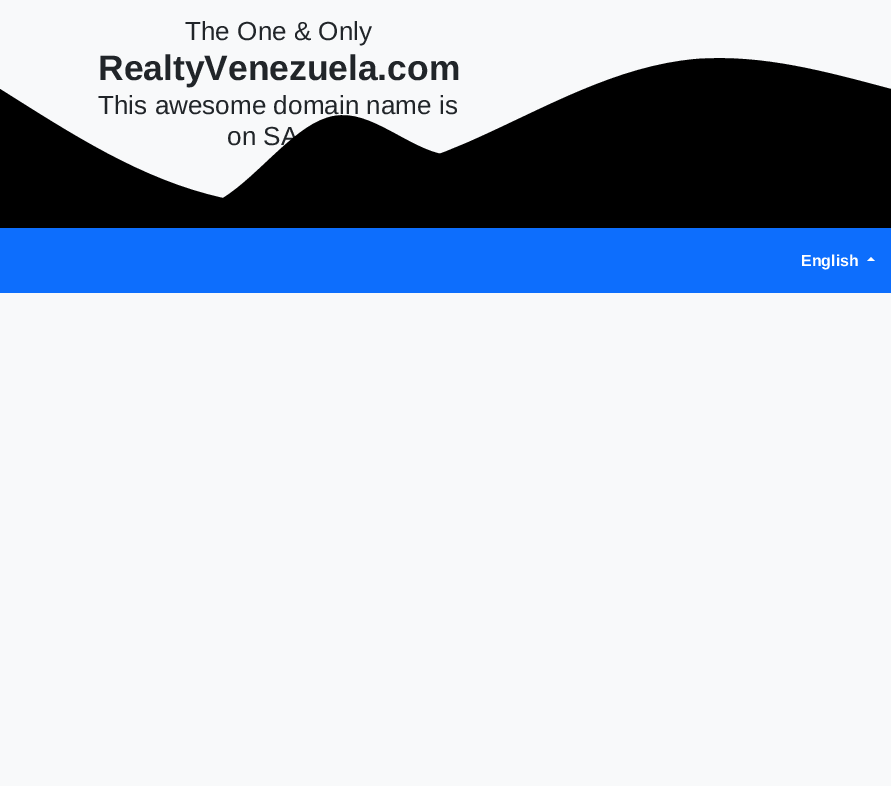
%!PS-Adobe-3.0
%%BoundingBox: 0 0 891 786
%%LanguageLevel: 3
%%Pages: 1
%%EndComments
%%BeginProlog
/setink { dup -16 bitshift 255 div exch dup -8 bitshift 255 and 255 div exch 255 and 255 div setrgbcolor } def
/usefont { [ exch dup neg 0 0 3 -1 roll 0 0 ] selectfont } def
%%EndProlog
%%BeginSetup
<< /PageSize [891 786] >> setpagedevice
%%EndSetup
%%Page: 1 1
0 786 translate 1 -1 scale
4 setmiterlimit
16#F8F9FA setink
0 0 891 786 rectfill
/LiberationSans-Regular 26.1 usefont
16#212529 setink
185 40 moveto (The One & Only) show
/LiberationSans-Bold 35.4 usefont
98 80 moveto (RealtyVenezuela.com) show
/LiberationSans-Regular 26.1 usefont
98 114 moveto (This awesome domain name is) show
227 145 moveto (on SA) show
16#000000 setink
0 129 moveto 19 142 lineto 37 156 74 182 111 198 curveto 148 215 186 221 223 198 curveto 260 175 297 122 334 116 curveto 371 109 408 149 446 155 curveto 483 162 520 136 557 112 curveto 594 89 631 70 668 66 curveto 705 63 742 76 780 103 curveto 817 129 854 169 872 188 curveto 891 208 lineto 891 228 lineto 0 228 lineto closepath fill
0 208 moveto 121 208 244 209 362 179 curveto 400 169 437 156 473 140 curveto 545 108 616 66 696 59 curveto 763 54 827 72 891 89 curveto 891 228 lineto 0 228 lineto closepath fill
0 89 moveto 70 133 141 180 223 198 curveto 287 213 353 204 418 198 curveto 445 195 473 193 501 191 curveto 566 188 631 188 696 188 curveto 891 188 lineto 891 228 lineto 0 228 lineto closepath fill
16#0D6EFD setink
0 228 891 65 rectfill
/LiberationSans-Bold 16 usefont
16#FFFFFF setink
801 266 moveto (English) show
875 261 moveto 867 261 lineto 871 257 lineto closepath fill
showpage
%%EOF
